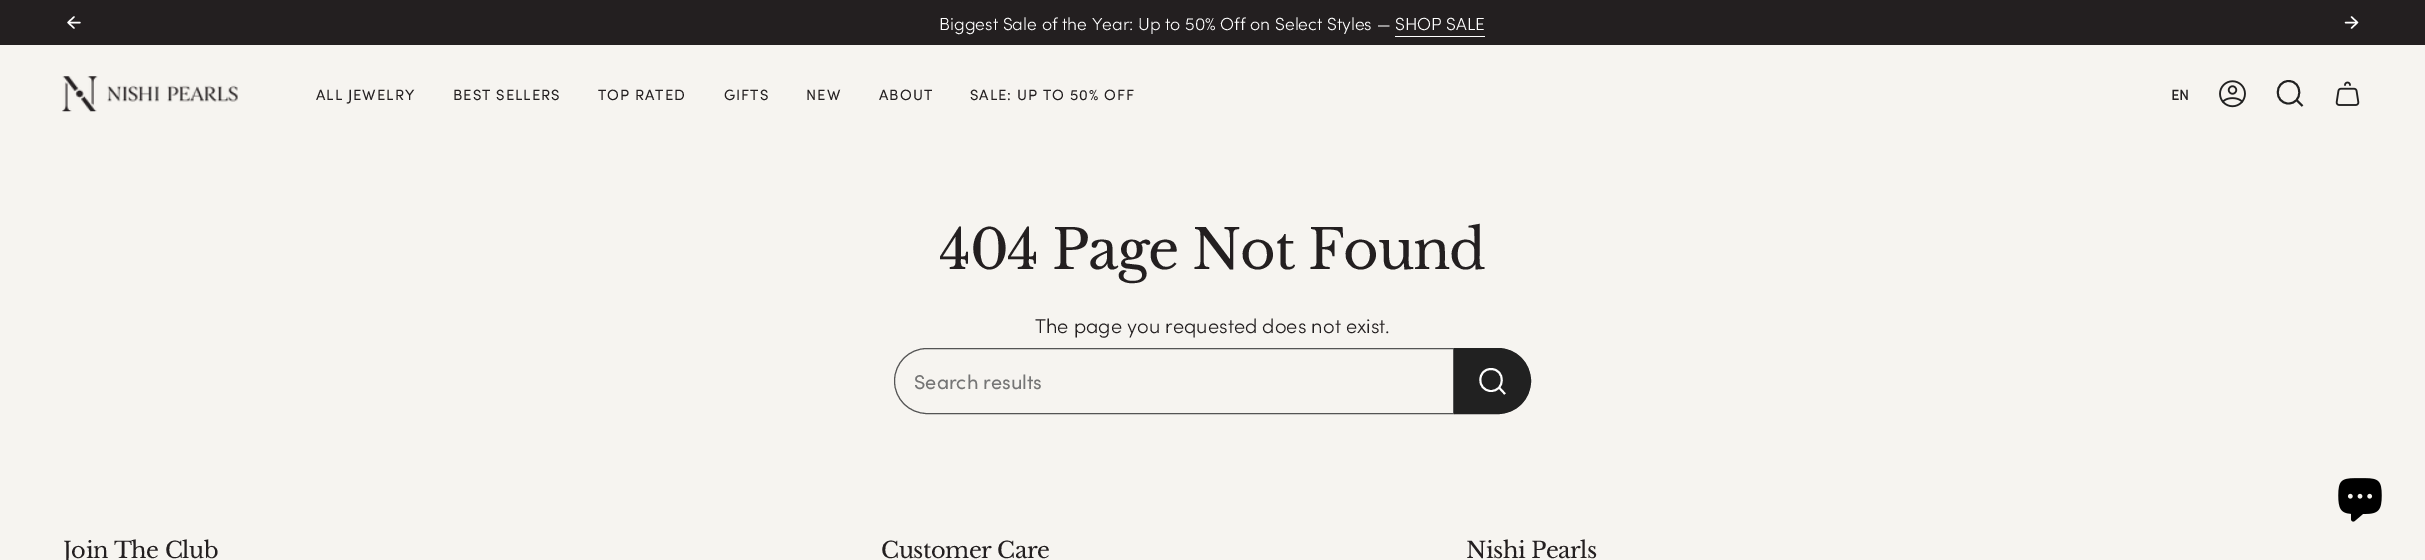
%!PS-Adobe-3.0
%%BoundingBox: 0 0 2425 560
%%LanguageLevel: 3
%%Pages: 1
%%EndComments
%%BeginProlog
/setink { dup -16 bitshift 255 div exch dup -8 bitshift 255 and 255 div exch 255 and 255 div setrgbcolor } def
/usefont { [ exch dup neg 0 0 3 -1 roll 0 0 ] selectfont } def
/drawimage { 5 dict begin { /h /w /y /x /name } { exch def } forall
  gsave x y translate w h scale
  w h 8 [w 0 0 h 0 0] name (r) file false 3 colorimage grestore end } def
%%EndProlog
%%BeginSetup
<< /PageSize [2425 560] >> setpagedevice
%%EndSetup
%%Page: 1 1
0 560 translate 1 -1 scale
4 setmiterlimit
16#F6F4F0 setink
0 0 2425 560 rectfill
16#231F20 setink
0 0 2425 45 rectfill
16#FFFFFF setink
1.4 setlinewidth
1 setlinecap
1 setlinejoin
80 22.5 moveto 68 22.5 lineto 68 22.5 moveto 74 17 lineto 68 22.5 moveto 74 28 lineto stroke
/Sofia-Light 17.5 usefont
939 30 moveto (Biggest Sale of the Year: Up to 50% Off on Select Styles — SHOP SALE) show
1395 36 90 1 rectfill
2345.5 22.5 moveto 2357.5 22.5 lineto 2357.5 22.5 moveto 2351.5 17 lineto 2357.5 22.5 moveto 2351.5 28 lineto stroke
(img1.raw) 62 76 176 36 drawimage
/Sofia-Regular 14.9 usefont
16#231F20 setink
316 100 moveto 1 0 (ALL JEWELRY) ashow
453 100 moveto 1 0 (BEST SELLERS) ashow
598 100 moveto 1 0 (TOP RATED) ashow
724 100 moveto 1 0 (GIFTS) ashow
806 100 moveto 1 0 (NEW) ashow
879 100 moveto 1 0 (ABOUT) ashow
970 100 moveto 1 0 (SALE: UP TO 50% OFF) ashow
/Sofia-Medium 14.9 usefont
2171 100 moveto (EN) show
(img2.raw) 2219 80 27 28 drawimage
16#212121 setink
1.9 setlinewidth
0 setlinecap
0 setlinejoin
2288.5 81 moveto 2303 81 2303 104 2288 103.5 curveto 2274 102.5 2274.5 81.5 2288.5 81 curveto closepath 2296.5 100 moveto 2302.5 106 lineto stroke
(img3.raw) 2335 81 25 25 drawimage
/LibreBaskerville-Regular 54.6 usefont
16#231F20 setink
939 269 moveto -1.4 0 (404 Page Not Found) ashow
/Sofia-Light 20 usefont
1035 333 moveto (The page you requested does not exist.) show
16#545454 setink
1 setlinewidth
927 348.5 moveto 1453.5 348.5 lineto 1453.5 413.5 lineto 927 413.5 lineto 909 413.5 894.5 399 894.5 381 curveto 894.5 363 909 348.5 927 348.5 curveto closepath stroke
/Sofia-Regular 20 usefont
16#757575 setink
914 389 moveto (Search results) show
16#212121 setink
1454.5 348.5 moveto 1498 348.5 lineto 1516 348.5 1530.5 363 1530.5 381 curveto 1530.5 399 1516 413.5 1498 413.5 curveto 1454.5 413.5 lineto closepath gsave fill grestore
stroke
16#FFFFFF setink
1.9 setlinewidth
1491 369 moveto 1505.5 369 1505.5 391.5 1490.5 391 curveto 1476.5 390 1477 369 1491 369 curveto closepath 1499 387.5 moveto 1505 394 lineto stroke
(img4.raw) 2338 478 44 44 drawimage
/LibreBaskerville-Regular 22.5 usefont
16#231F20 setink
63 558 moveto -0.5 0 (Join The Club) ashow
881 558 moveto -0.5 0 (Customer Care) ashow
1466 558 moveto -0.5 0 (Nishi Pearls) ashow
showpage
%%EOF
